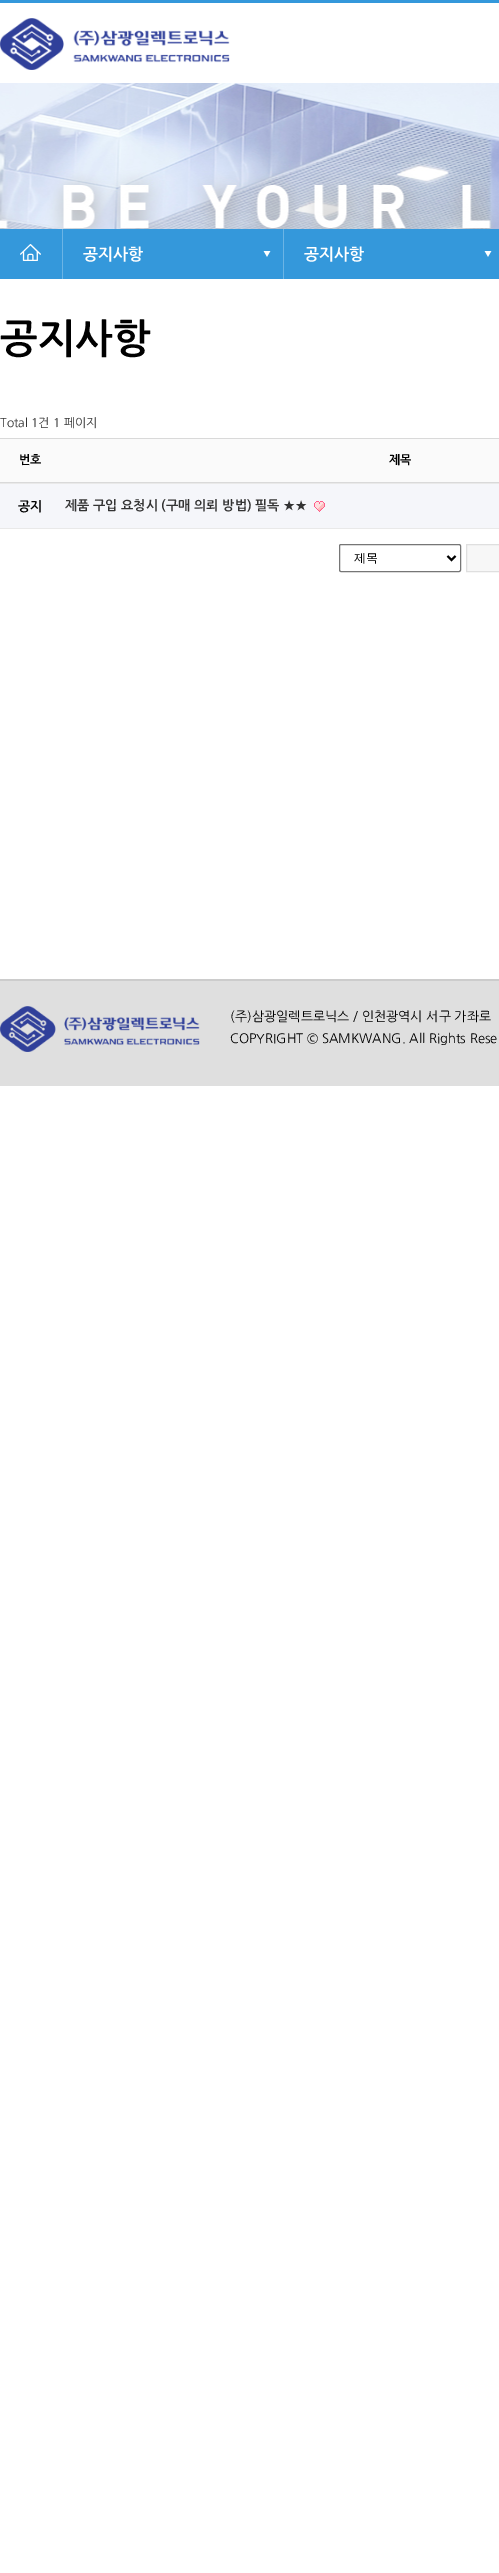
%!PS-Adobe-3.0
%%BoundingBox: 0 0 499 2573
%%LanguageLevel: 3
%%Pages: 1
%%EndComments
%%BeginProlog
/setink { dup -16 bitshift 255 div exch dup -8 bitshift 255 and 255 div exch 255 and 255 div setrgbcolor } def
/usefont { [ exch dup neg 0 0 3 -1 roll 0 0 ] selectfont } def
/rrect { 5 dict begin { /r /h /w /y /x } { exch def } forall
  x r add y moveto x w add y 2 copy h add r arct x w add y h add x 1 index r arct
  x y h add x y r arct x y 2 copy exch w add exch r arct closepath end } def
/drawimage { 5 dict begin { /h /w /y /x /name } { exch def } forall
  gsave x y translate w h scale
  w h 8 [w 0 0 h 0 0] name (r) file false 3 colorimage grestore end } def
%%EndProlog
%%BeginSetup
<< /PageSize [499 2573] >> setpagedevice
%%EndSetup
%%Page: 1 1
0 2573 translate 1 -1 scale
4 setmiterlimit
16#FFFFFF setink
0 0 499 2573 rectfill
16#3498DB setink
0 0 499 3 rectfill
(img1.raw) 0 18 230 52 drawimage
(img2.raw) 0 83 499 146 drawimage
0 229 283 50 rectfill
(img3.raw) 20 244 21 17 drawimage
(img4.raw) 263 251 8 6 drawimage
16#6BB4E5 setink
62 229 1 50 rectfill
/NanumGothic-Bold 16 usefont
16#FFFFFF setink
83 260 moveto (공지사항) show
16#3498DB setink
284 229 215 50 rectfill
(img4.raw) 484 251 8 6 drawimage
16#6BB4E5 setink
283 229 1 50 rectfill
16#FFFFFF setink
304 260 moveto (공지사항) show
/NanumGothic-Bold 40 usefont
16#000000 setink
0 353 moveto (공지사항) show
/NanumGothic-Regular 12 usefont
16#333333 setink
0 427 moveto (Total 1건 1 페이지) show
16#FAFAFA setink
0 439 499 43 rectfill
/NanumGothic-Bold 12 usefont
16#000000 setink
19 464 moveto (번호) show
16#D9D9D9 setink
0 438 499 1 rectfill
0 482 499 1 rectfill
16#000000 setink
389 464 moveto (제목) show
16#F5F6FA setink
0 484 499 44 rectfill
/NanumGothic-Bold 13 usefont
16#000000 setink
18 511 moveto (공지) show
16#E9E9E9 setink
0 483 499 1 rectfill
0 528 499 1 rectfill
16#333333 setink
65 510 moveto (제품 구입 요청시 \(구매 의뢰 방법\) 필독 ★★) show
(img5.raw) 314 501 11 11 drawimage
16#767676 setink
339.5 544.5 121 27 1.5 rrect stroke
16#000000 setink
2 setlinewidth
447.5 556 moveto 451.5 560 lineto 455.5 556 lineto stroke
/WenQuanYiZenHei-Medium 12 usefont
354 562 moveto (제목) show
16#F7F7F7 setink
466.5 544.5 moveto 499.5 544.5 lineto 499.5 571.5 lineto 466.5 571.5 lineto closepath gsave fill grestore
16#DFDFDF setink
1 setlinewidth
stroke
0 981 499 105 rectfill
16#CCCCCC setink
0 979 499 2 rectfill
(img6.raw) 0 1006 200 46 drawimage
/NanumGothic-Regular 13 usefont
16#000000 setink
230 1021 moveto (\(주\)삼광일렉트로닉스 / 인천광역시 서구 가좌로) show
230 1043 moveto (COPYRIGHT © SAMKWANG. All Rights Rese) show
showpage
%%EOF
